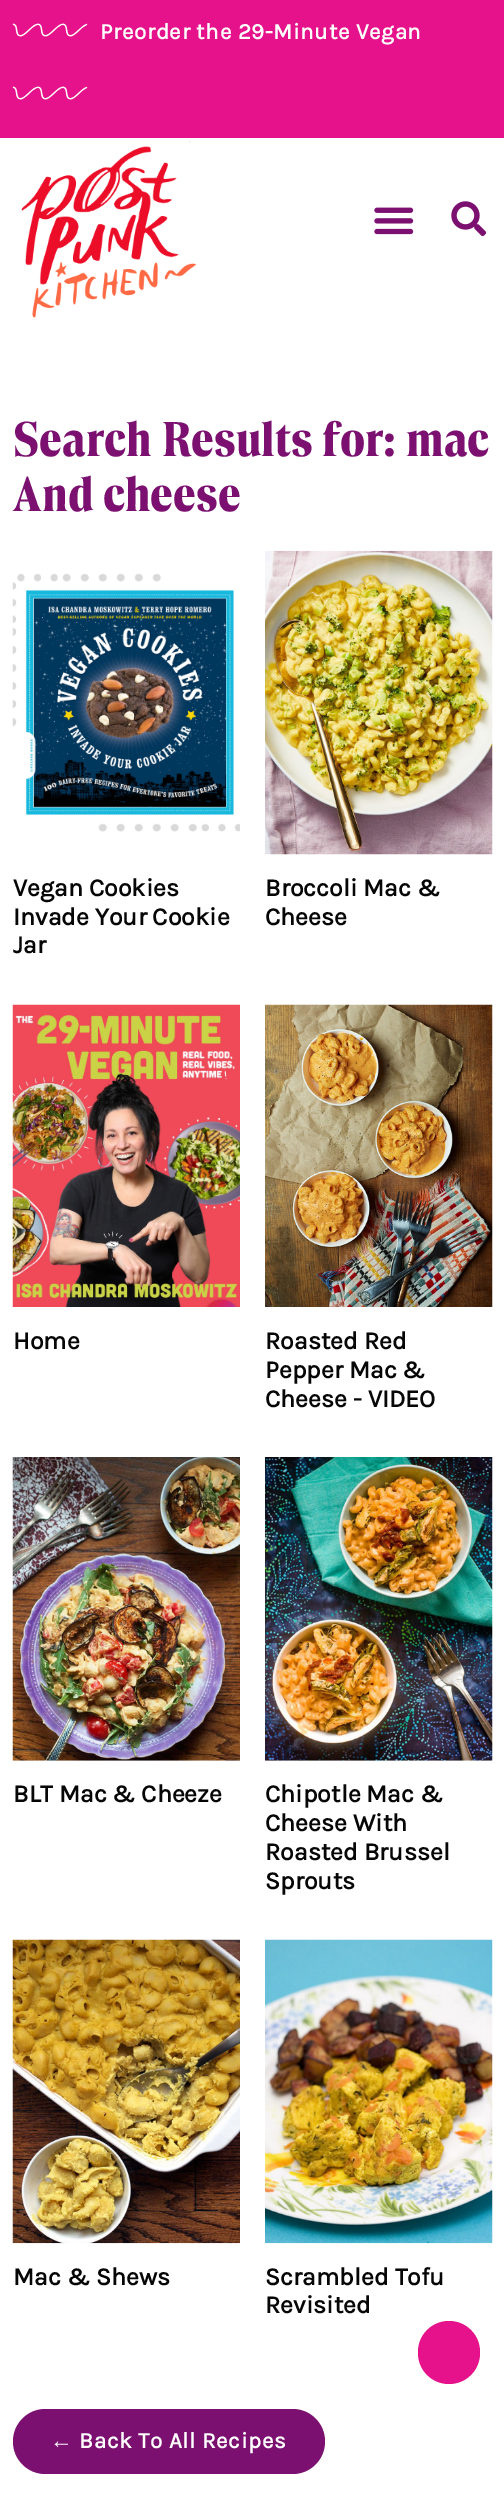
%!PS-Adobe-3.0
%%BoundingBox: 0 0 504 2508
%%LanguageLevel: 3
%%Pages: 1
%%EndComments
%%BeginProlog
/setink { dup -16 bitshift 255 div exch dup -8 bitshift 255 and 255 div exch 255 and 255 div setrgbcolor } def
/usefont { [ exch dup neg 0 0 3 -1 roll 0 0 ] selectfont } def
/rrect { 5 dict begin { /r /h /w /y /x } { exch def } forall
  x r add y moveto x w add y 2 copy h add r arct x w add y h add x 1 index r arct
  x y h add x y r arct x y 2 copy exch w add exch r arct closepath end } def
/drawimage { 5 dict begin { /h /w /y /x /name } { exch def } forall
  gsave x y translate w h scale
  w h 8 [w 0 0 h 0 0] name (r) file false 3 colorimage grestore end } def
%%EndProlog
%%BeginSetup
<< /PageSize [504 2508] >> setpagedevice
%%EndSetup
%%Page: 1 1
0 2508 translate 1 -1 scale
4 setmiterlimit
16#FFFFFF setink
0 0 504 2508 rectfill
16#E5128B setink
0 0 504 138 rectfill
(img1.raw) 12 23 76 14 drawimage
/Karla-Bold 22.5 usefont
16#FFFFFF setink
100 39 moveto 0.6 0 (Preorder the 29-Minute Vegan) ashow
(img1.raw) 12 86 76 14 drawimage
(img2.raw) 21 141 175 177 drawimage
(img3.raw) 374 207 40 28 drawimage
(img4.raw) 451 201 35 35 drawimage
/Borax-Bold 50 usefont
16#7B1070 setink
13 456 moveto (Search Results for: mac) show
13 511 moveto (And cheese) show
(img5.raw) 12 573 228 259 drawimage
/Karla-Bold 25 usefont
16#060606 setink
13 896 moveto (Vegan Cookies) show
13 925 moveto (Invade Your Cookie) show
gsave
13 551 227 429 rectclip
13 953 moveto (Jar) show
grestore
(img6.raw) 265 550 228 305 drawimage
265 896 moveto (Broccoli Mac &) show
265 925 moveto (Cheese) show
(img7.raw) 12 1004 228 303 drawimage
13 1349 moveto (Home) show
(img8.raw) 265 1004 228 303 drawimage
[
    [(Roasted Red) 265 1349]
    [(Pepper Mac &) 265 1378]
    [(Cheese - VIDEO) 265 1407]
] { aload pop moveto show } forall
(img9.raw) 12 1457 228 304 drawimage
13 1802 moveto (BLT Mac & Cheeze) show
(img10.raw) 265 1457 228 304 drawimage
[
    [(Chipotle Mac &) 265 1802]
    [(Cheese With) 265 1831]
    [(Roasted Brussel) 265 1860]
    [(Sprouts) 265 1889]
] { aload pop moveto show } forall
(img11.raw) 12 1939 228 305 drawimage
13 2285 moveto (Mac & Shews) show
(img12.raw) 265 1939 228 305 drawimage
265 2285 moveto (Scrambled Tofu) show
265 2313 moveto (Revisited) show
16#7B1070 setink
13 2409 312 65 32.5 rrect fill
/LiberationSans-Bold 22.5 usefont
16#FFFFFF setink
50 2448 moveto 0.6 0 (←) ashow
/Karla-Bold 22.5 usefont
79 2448 moveto 0.6 0 (Back To All Recipes) ashow
16#E5128B setink
418 2321 62 63 31 rrect fill
showpage
%%EOF
